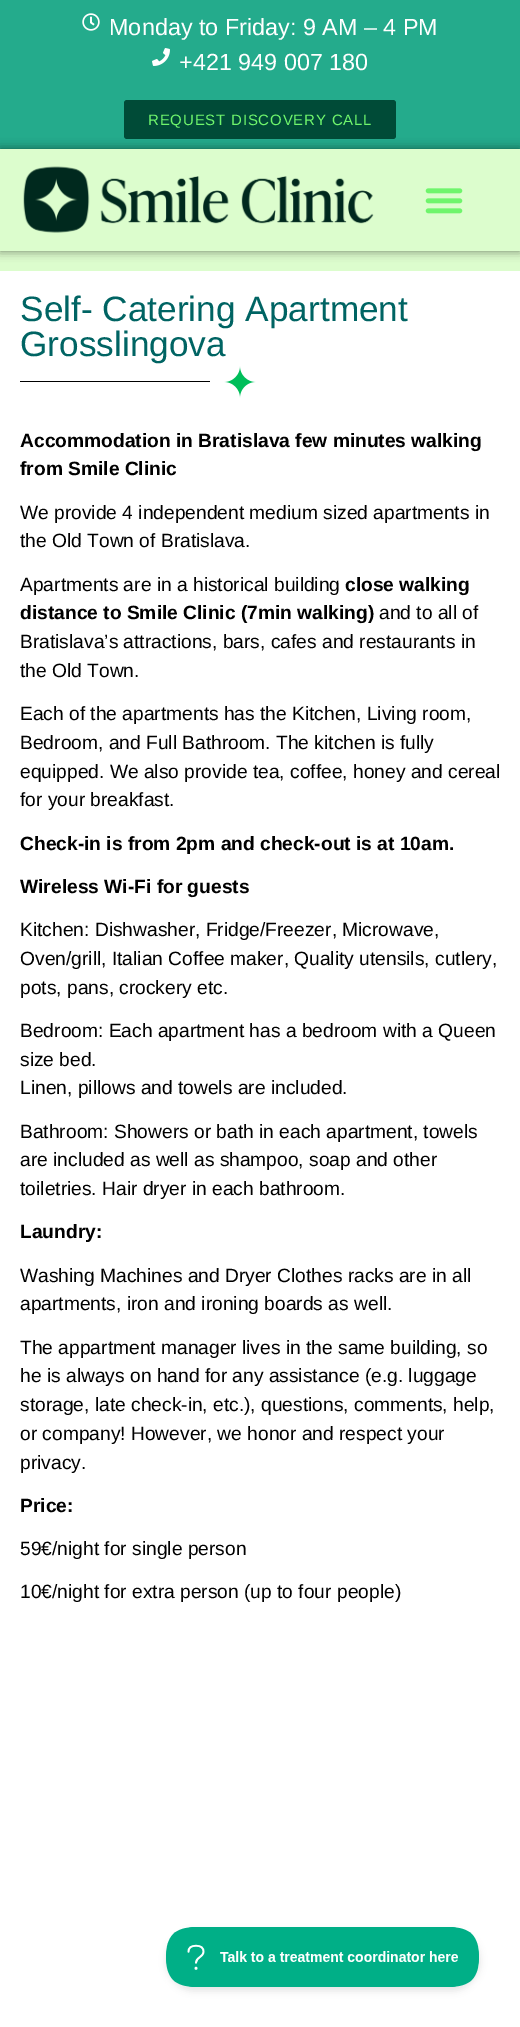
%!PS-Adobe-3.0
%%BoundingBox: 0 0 520 2027
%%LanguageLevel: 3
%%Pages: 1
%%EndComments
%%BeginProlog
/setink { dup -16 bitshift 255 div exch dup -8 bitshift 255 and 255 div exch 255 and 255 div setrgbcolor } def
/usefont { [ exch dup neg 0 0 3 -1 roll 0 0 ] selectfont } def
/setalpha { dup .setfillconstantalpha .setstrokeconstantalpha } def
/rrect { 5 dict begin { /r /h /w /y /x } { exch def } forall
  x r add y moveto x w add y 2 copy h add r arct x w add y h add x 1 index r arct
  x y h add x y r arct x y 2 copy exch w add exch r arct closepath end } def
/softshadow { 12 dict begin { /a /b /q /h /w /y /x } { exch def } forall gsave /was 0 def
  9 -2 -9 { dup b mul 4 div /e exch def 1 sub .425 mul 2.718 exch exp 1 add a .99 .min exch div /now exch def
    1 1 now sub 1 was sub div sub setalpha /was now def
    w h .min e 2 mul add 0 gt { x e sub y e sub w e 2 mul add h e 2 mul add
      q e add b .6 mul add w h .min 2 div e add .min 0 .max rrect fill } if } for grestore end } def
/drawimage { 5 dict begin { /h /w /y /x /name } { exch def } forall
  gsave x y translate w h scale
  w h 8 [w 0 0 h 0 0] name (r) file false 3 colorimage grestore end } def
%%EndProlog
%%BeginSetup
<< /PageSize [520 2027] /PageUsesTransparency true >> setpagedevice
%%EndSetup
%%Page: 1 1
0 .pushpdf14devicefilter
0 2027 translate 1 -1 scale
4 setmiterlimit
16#DCFDCD setink
0 0 520 2027 rectfill
16#24AB8C setink
0 0 520 149 rectfill
(img1.raw) 82 13 18 18 drawimage
/LiberationSans-Regular 23.4 usefont
16#FFFFFF setink
109 35 moveto (Monday to Friday: 9 AM – 4 PM) show
(img2.raw) 152 48 18 18 drawimage
179 70 moveto (+421 949 007 180) show
16#004B37 setink
124 100 272 39 3 rrect fill
/LiberationSans-Regular 15 usefont
16#6FF56C setink
148 125 moveto 0.8 0 (REQUEST DISCOVERY CALL) ashow
gsave
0 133 moveto 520 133 lineto 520 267 lineto 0 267 lineto closepath 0 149 moveto 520 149 lineto 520 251 lineto 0 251 lineto closepath eoclip newpath
16#000000 setink
0 149 520 102 0 5 0.5 softshadow
grestore
(img3.raw) 23 166 351 67 drawimage
(img4.raw) 425 188 38 26 drawimage
16#FFFFFF setink
0 271 520 1756 rectfill
/LiberationSans-Regular 35.25 usefont
16#006463 setink
20 321 moveto (Self- Catering Apartment) show
20 356 moveto (Grosslingova) show
16#000000 setink
20 381 190 1 rectfill
(img5.raw) 224 366 32 32 drawimage
/LiberationSans-Bold 19.2 usefont
20 447 moveto (Accommodation in Bratislava few minutes walking) show
20 475 moveto (from Smile Clinic) show
/LiberationSans-Regular 19.2 usefont
[
    [(We provide 4 independent medium sized apartments in) 20 519]
    [(the Old Town of Bratislava.) 20 547]
    [(Apartments are in a historical building) 20 591]
] { aload pop moveto show } forall
/LiberationSans-Bold 19.2 usefont
345 591 moveto (close walking) show
20 619 moveto (distance to Smile Clinic \(7min walking\)) show
/LiberationSans-Regular 19.2 usefont
[
    [(and to all of) 379 619]
    [(Bratislava’s attractions, bars, cafes and restaurants in) 20 648]
    [(the Old Town.) 20 677]
    [(Each of the apartments has the Kitchen, Living room,) 20 720]
    [(Bedroom, and Full Bathroom. The kitchen is fully) 20 749]
    [(equipped. We also provide tea, coffee, honey and cereal) 20 778]
    [(for your breakfast.) 20 806]
] { aload pop moveto show } forall
/LiberationSans-Bold 19.2 usefont
20 850 moveto (Check-in is from 2pm and check-out is at 10am.) show
20 893 moveto (Wireless Wi-Fi for guests) show
/LiberationSans-Regular 19.2 usefont
[
    [(Kitchen: Dishwasher, Fridge/Freezer, Microwave,) 20 936]
    [(Oven/grill, Italian Coffee maker, Quality utensils, cutlery,) 20 965]
    [(pots, pans, crockery etc.) 20 994]
    [(Bedroom: Each apartment has a bedroom with a Queen) 20 1037]
    [(size bed.) 20 1066]
    [(Linen, pillows and towels are included.) 20 1094]
    [(Bathroom: Showers or bath in each apartment, towels) 20 1138]
    [(are included as well as shampoo, soap and other) 20 1166]
    [(toiletries. Hair dryer in each bathroom.) 20 1195]
] { aload pop moveto show } forall
/LiberationSans-Bold 19.2 usefont
20 1238 moveto (Laundry:) show
/LiberationSans-Regular 19.2 usefont
[
    [(Washing Machines and Dryer Clothes racks are in all) 20 1282]
    [(apartments, iron and ironing boards as well.) 20 1310]
    [(The appartment manager lives in the same building, so) 20 1354]
    [(he is always on hand for any assistance \(e.g. luggage) 20 1382]
    [(storage, late check-in, etc.\), questions, comments, help,) 20 1411]
    [(or company! However, we honor and respect your) 20 1440]
    [(privacy.) 20 1469]
] { aload pop moveto show } forall
/LiberationSans-Bold 19.2 usefont
20 1512 moveto (Price:) show
/LiberationSans-Regular 19.2 usefont
20 1555 moveto (59€/night for single person) show
20 1598 moveto (10€/night for extra person \(up to four people\)) show
166 1931 314 60 30 3.5 0.1 softshadow
(img6.raw) 166 1927 313 60 drawimage
.poppdf14devicefilter showpage
%%EOF
